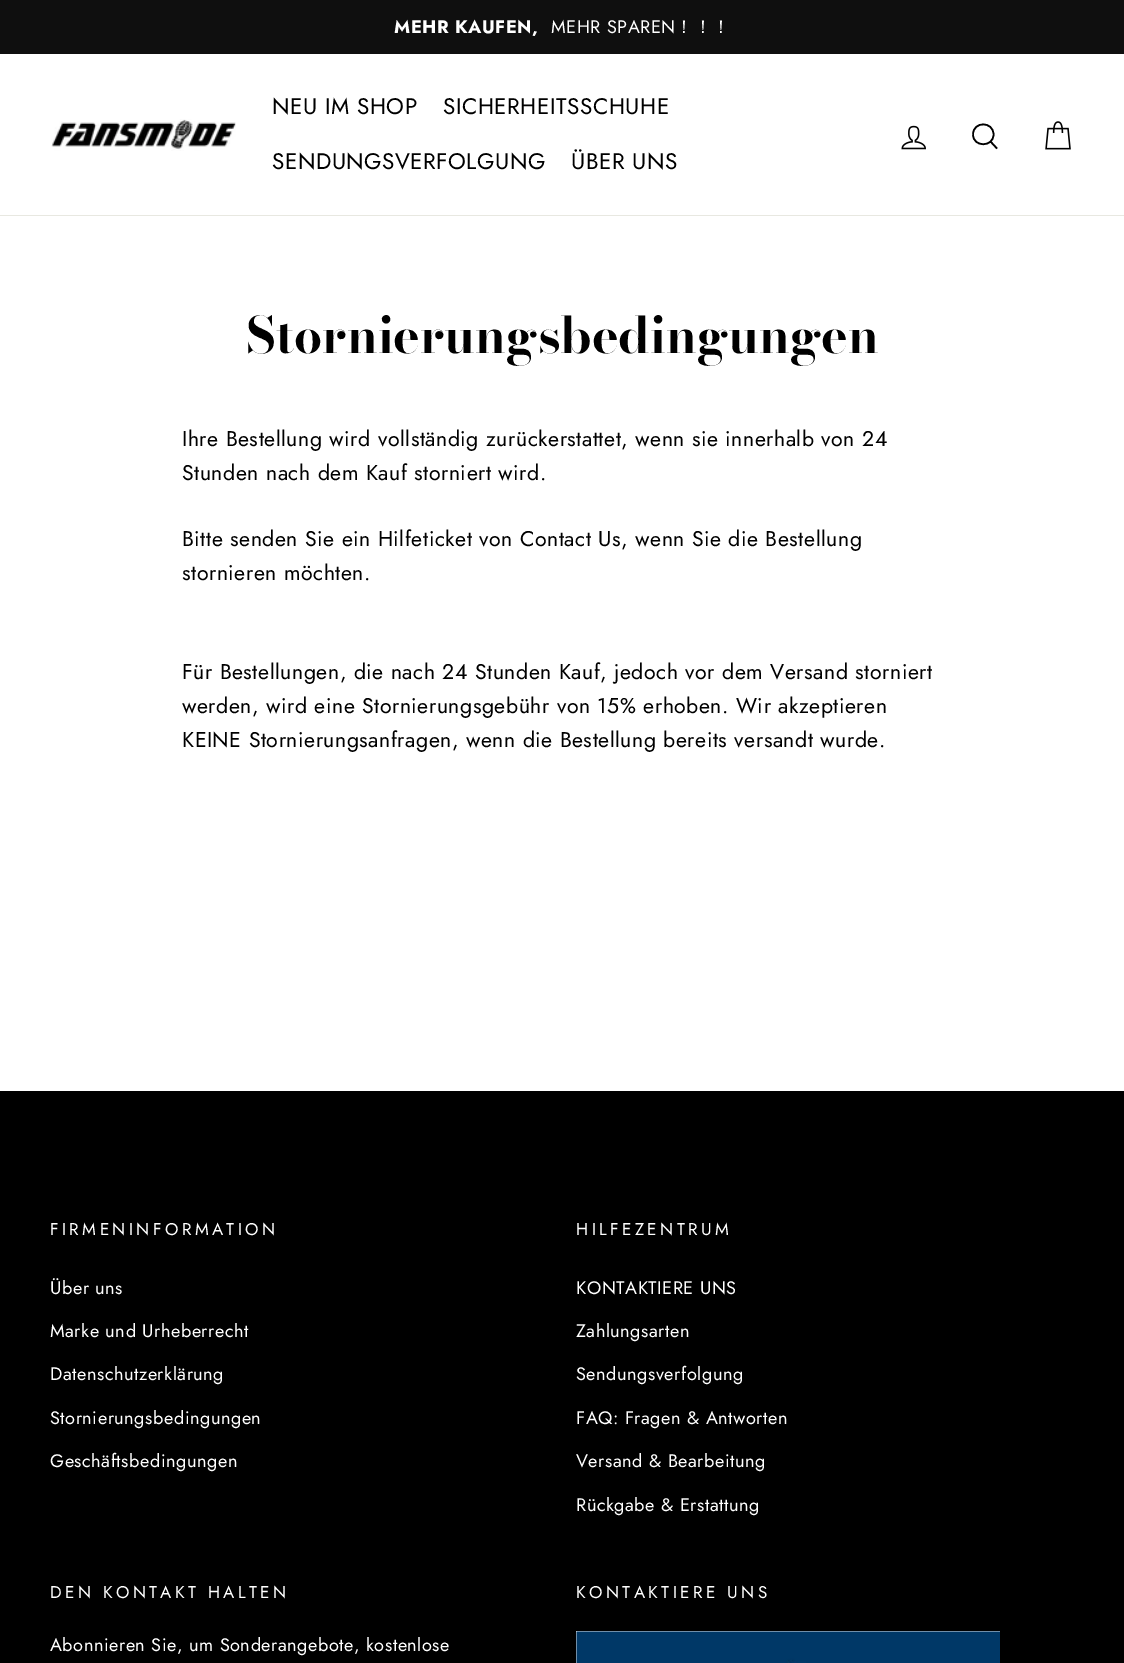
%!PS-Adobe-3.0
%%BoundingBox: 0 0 1124 1663
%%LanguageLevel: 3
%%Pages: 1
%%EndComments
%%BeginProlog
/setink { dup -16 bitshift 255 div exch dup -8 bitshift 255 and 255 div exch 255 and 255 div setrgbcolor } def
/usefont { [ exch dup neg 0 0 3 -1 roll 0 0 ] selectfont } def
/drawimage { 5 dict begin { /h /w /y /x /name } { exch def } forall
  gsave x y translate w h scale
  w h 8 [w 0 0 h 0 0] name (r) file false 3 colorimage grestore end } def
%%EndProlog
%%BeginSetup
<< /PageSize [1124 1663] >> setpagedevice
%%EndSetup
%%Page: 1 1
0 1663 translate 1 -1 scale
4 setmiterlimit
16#FFFFFF setink
0 0 1124 1663 rectfill
16#0F0F0F setink
0 0 1124 54 rectfill
/Jost-Bold 18.1 usefont
16#FFFFFF setink
394 33 moveto 0.53 0 (MEHR KAUFEN,) ashow
/Jost-Regular 18.1 usefont
551 33 moveto 0.53 0 (MEHR SPAREN) ashow
/WenQuanYiZenHei-Medium 18.1 usefont
675 33 moveto 0.53 0 (！！！) ashow
16#E8E8E1 setink
0 215 1124 1 rectfill
(img1.raw) 51 119 185 32 drawimage
/Jost-Regular 22.5 usefont
16#000000 setink
272 114 moveto 0.53 0 (NEU IM SHOP) ashow
443 114 moveto 0.53 0 (SICHERHEITSSCHUHE) ashow
272 169 moveto 0.53 0 (SENDUNGSVERFOLGUNG) ashow
571 169 moveto 0.53 0 (ÜBER UNS) ashow
(img2.raw) 901 125 25 25 drawimage
1.6 setlinewidth
993.5 134.5 moveto 993.5 147.5 973 147.5 973 134.5 curveto 973 121 993.5 121 993.5 134.5 curveto closepath 997 148.5 moveto 990.5 141.5 lineto stroke
(img3.raw) 1045 121 26 29 drawimage
/BodoniModa-Bold 50 usefont
246 353 moveto (Stornierungsbedingungen) show
/Jost-Regular 21.25 usefont
182 446 moveto 0.53 0 (Ihre Bestellung wird vollständig zurückerstattet, wenn sie innerhalb von 24) ashow
182 480 moveto 0.53 0 (Stunden nach dem Kauf storniert wird.) ashow
182 546 moveto 0.53 0 (Bitte senden Sie ein Hilfeticket von Contact Us, wenn Sie die Bestellung) ashow
182 580 moveto 0.53 0 (stornieren möchten.) ashow
182 679 moveto 0.53 0 (Für Bestellungen, die nach 24 Stunden Kauf, jedoch vor dem Versand storniert) ashow
182 713 moveto 0.53 0 (werden, wird eine Stornierungsgebühr von 15% erhoben. Wir akzeptieren) ashow
182 747 moveto 0.53 0 (KEINE Stornierungsanfragen, wenn die Bestellung bereits versandt wurde.) ashow
0 1091 1124 572 rectfill
/Jost-Regular 17 usefont
16#FFFFFF setink
50 1235 moveto 3.4 0 (FIRMENINFORMATION) ashow
/Jost-Regular 18.1 usefont
50 1294 moveto 0.53 0 (Über uns) ashow
50 1337 moveto 0.53 0 (Marke und Urheberrecht) ashow
50 1380 moveto 0.53 0 (Datenschutzerklärung) ashow
50 1424 moveto 0.53 0 (Stornierungsbedingungen) ashow
50 1467 moveto 0.53 0 (Geschäftsbedingungen) ashow
/Jost-Regular 17 usefont
576 1235 moveto 3.4 0 (HILFEZENTRUM) ashow
/Jost-Regular 18.1 usefont
576 1294 moveto 0.53 0 (KONTAKTIERE UNS) ashow
576 1337 moveto 0.53 0 (Zahlungsarten) ashow
576 1380 moveto 0.53 0 (Sendungsverfolgung) ashow
576 1424 moveto 0.53 0 (FAQ: Fragen & Antworten) ashow
576 1467 moveto 0.53 0 (Versand & Bearbeitung) ashow
576 1511 moveto 0.53 0 (Rückgabe & Erstattung) ashow
/Jost-Regular 17 usefont
50 1598 moveto 3.4 0 (DEN KONTAKT HALTEN) ashow
/Jost-Regular 18.1 usefont
50 1651 moveto 0.53 0 (Abonnieren Sie, um Sonderangebote, kostenlose) ashow
/Jost-Regular 17 usefont
576 1598 moveto 3.4 0 (KONTAKTIERE UNS) ashow
576 1631 424 32 rectfill
(img4.raw) 576 1631 424 32 drawimage
showpage
%%EOF
